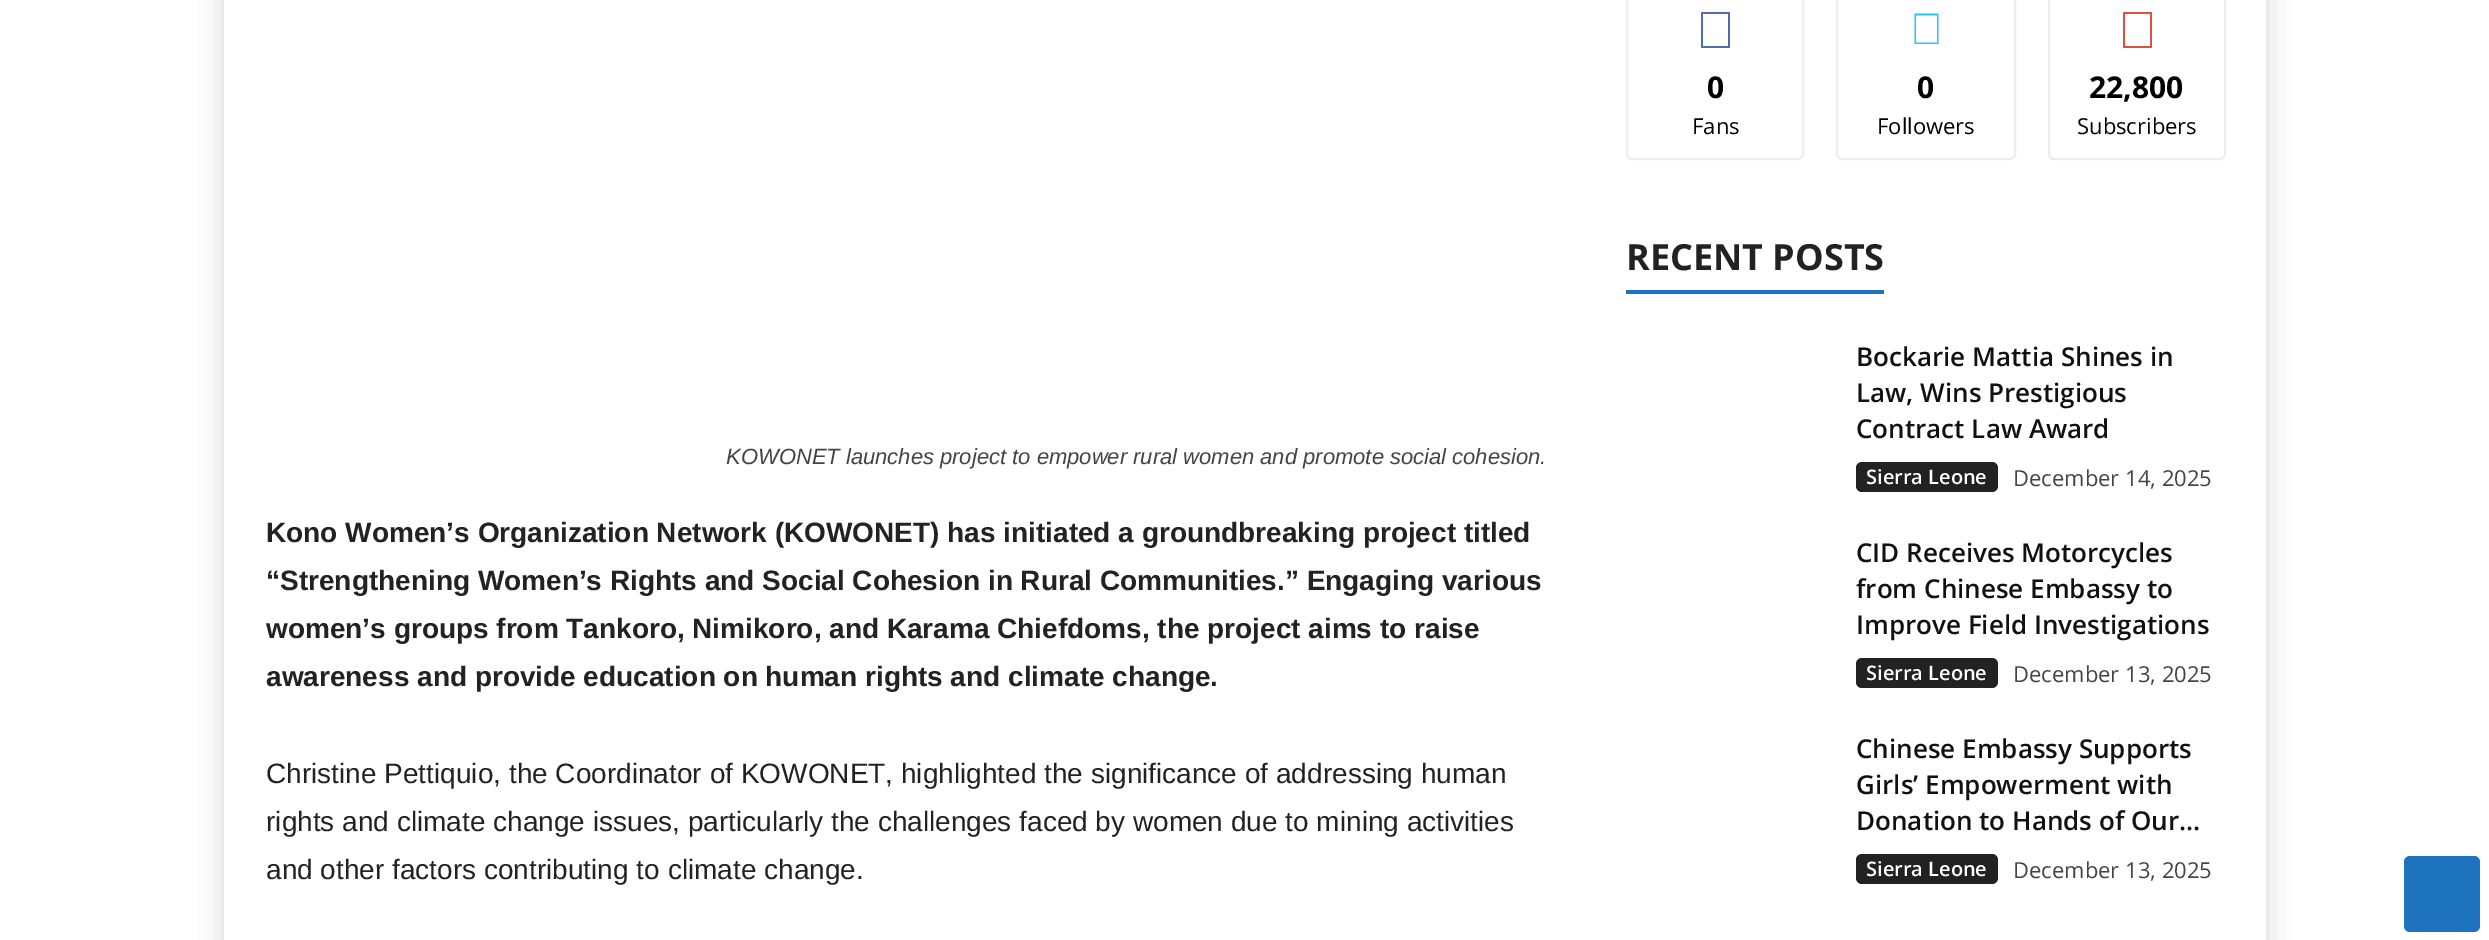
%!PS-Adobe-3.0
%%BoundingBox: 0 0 2489 940
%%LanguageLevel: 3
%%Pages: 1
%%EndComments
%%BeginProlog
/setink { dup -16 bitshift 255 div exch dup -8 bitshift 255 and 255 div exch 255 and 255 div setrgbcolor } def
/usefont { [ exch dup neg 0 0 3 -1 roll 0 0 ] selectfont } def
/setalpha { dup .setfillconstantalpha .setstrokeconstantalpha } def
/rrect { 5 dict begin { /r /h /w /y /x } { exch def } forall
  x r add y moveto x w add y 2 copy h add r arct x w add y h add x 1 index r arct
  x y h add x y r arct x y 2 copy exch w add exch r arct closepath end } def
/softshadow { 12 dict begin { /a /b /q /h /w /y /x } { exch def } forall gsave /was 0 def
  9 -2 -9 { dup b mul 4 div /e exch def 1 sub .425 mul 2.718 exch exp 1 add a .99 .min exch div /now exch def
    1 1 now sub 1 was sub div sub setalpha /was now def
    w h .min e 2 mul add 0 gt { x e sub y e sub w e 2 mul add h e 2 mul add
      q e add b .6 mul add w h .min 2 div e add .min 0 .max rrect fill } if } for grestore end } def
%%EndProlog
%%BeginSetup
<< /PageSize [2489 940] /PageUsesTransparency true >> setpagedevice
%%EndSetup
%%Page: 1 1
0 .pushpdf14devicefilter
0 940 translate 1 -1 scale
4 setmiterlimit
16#FFFFFF setink
0 0 2489 940 rectfill
gsave
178 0 moveto 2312 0 lineto 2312 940 lineto 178 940 lineto closepath 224 -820 moveto 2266 -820 lineto 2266 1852 lineto 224 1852 lineto closepath eoclip newpath
16#000000 setink
224 -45 2042 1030 0 15 0.15 softshadow
grestore
/LiberationSans-Italic 22 usefont
16#444444 setink
726 464 moveto (KOWONET launches project to empower rural women and promote social cohesion.) show
/LiberationSans-Bold 28 usefont
16#222222 setink
[
    [(Kono Women’s Organization Network \(KOWONET\) has initiated a groundbreaking project titled) 266 542]
    [(“Strengthening Women’s Rights and Social Cohesion in Rural Communities.” Engaging various) 266 590]
    [(women’s groups from Tankoro, Nimikoro, and Karama Chiefdoms, the project aims to raise) 266 638]
    [(awareness and provide education on human rights and climate change.) 266 686]
] { aload pop moveto show } forall
/LiberationSans-Regular 28 usefont
[
    [(Christine Pettiquio, the Coordinator of KOWONET, highlighted the significance of addressing human) 266 783]
    [(rights and climate change issues, particularly the challenges faced by women due to mining activities) 266 831]
    [(and other factors contributing to climate change.) 266 879]
] { aload pop moveto show } forall
16#EDEDED setink
2 setlinewidth
1627 -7 176 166 5 rrect stroke
16#516EAB setink
1701 12 moveto 1730 12 lineto 1730 48 lineto 1701 48 lineto closepath 1703 14 moveto 1703 46 lineto 1728 46 lineto 1728 14 lineto closepath fill
/OpenSans-Bold 30 usefont
16#000000 setink
1707 98 moveto (0) show
/OpenSans-Regular 22 usefont
1692 134 moveto (Fans) show
16#EDEDED setink
1837 -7 178 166 5 rrect stroke
16#29C5F6 setink
1914.5 13.5 moveto 1938.5 13.5 lineto 1938.5 44 lineto 1914.5 44 lineto closepath 1916 15.5 moveto 1916 42.5 lineto 1937 42.5 lineto 1937 15.5 lineto closepath fill
/OpenSans-Bold 30 usefont
16#000000 setink
1917 98 moveto (0) show
/OpenSans-Regular 22 usefont
1877 134 moveto (Followers) show
16#EDEDED setink
2049 -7 176 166 5 rrect stroke
16#E14E42 setink
2123 12 moveto 2152 12 lineto 2152 48 lineto 2123 48 lineto closepath 2125 14 moveto 2125 46 lineto 2150 46 lineto 2150 14 lineto closepath fill
/OpenSans-Bold 30 usefont
16#000000 setink
2089 98 moveto (22,800) show
/OpenSans-Regular 22 usefont
2077 134 moveto (Subscribers) show
/OpenSans-Bold 36 usefont
16#222222 setink
1626 270 moveto (RECENT POSTS) show
16#1E73BE setink
1626 290 258 4 rectfill
/OpenSans-SemiBold 26 usefont
16#111111 setink
[
    [(Bockarie Mattia Shines in) 1856 366]
    [(Law, Wins Prestigious) 1856 402]
    [(Contract Law Award) 1856 438]
] { aload pop moveto show } forall
16#222222 setink
1856 462 142 30 6 rrect fill
/OpenSans-SemiBold 20 usefont
16#FFFFFF setink
1866 484 moveto (Sierra Leone) show
/OpenSans-Regular 22 usefont
16#444444 setink
2013 486 moveto (December 14, 2025) show
/OpenSans-SemiBold 26 usefont
16#111111 setink
[
    [(CID Receives Motorcycles) 1856 562]
    [(from Chinese Embassy to) 1856 598]
    [(Improve Field Investigations) 1856 634]
] { aload pop moveto show } forall
16#222222 setink
1856 658 142 30 6 rrect fill
/OpenSans-SemiBold 20 usefont
16#FFFFFF setink
1866 680 moveto (Sierra Leone) show
/OpenSans-Regular 22 usefont
16#444444 setink
2013 682 moveto (December 13, 2025) show
/OpenSans-SemiBold 26 usefont
16#111111 setink
[
    [(Chinese Embassy Supports) 1856 758]
    [(Girls’ Empowerment with) 1856 794]
    [(Donation to Hands of Our...) 1856 830]
] { aload pop moveto show } forall
16#222222 setink
1856 854 142 30 6 rrect fill
/OpenSans-SemiBold 20 usefont
16#FFFFFF setink
1866 876 moveto (Sierra Leone) show
/OpenSans-Regular 22 usefont
16#444444 setink
2013 878 moveto (December 13, 2025) show
16#1E73BE setink
2404 856 76 76 6 rrect fill
.poppdf14devicefilter showpage
%%EOF
